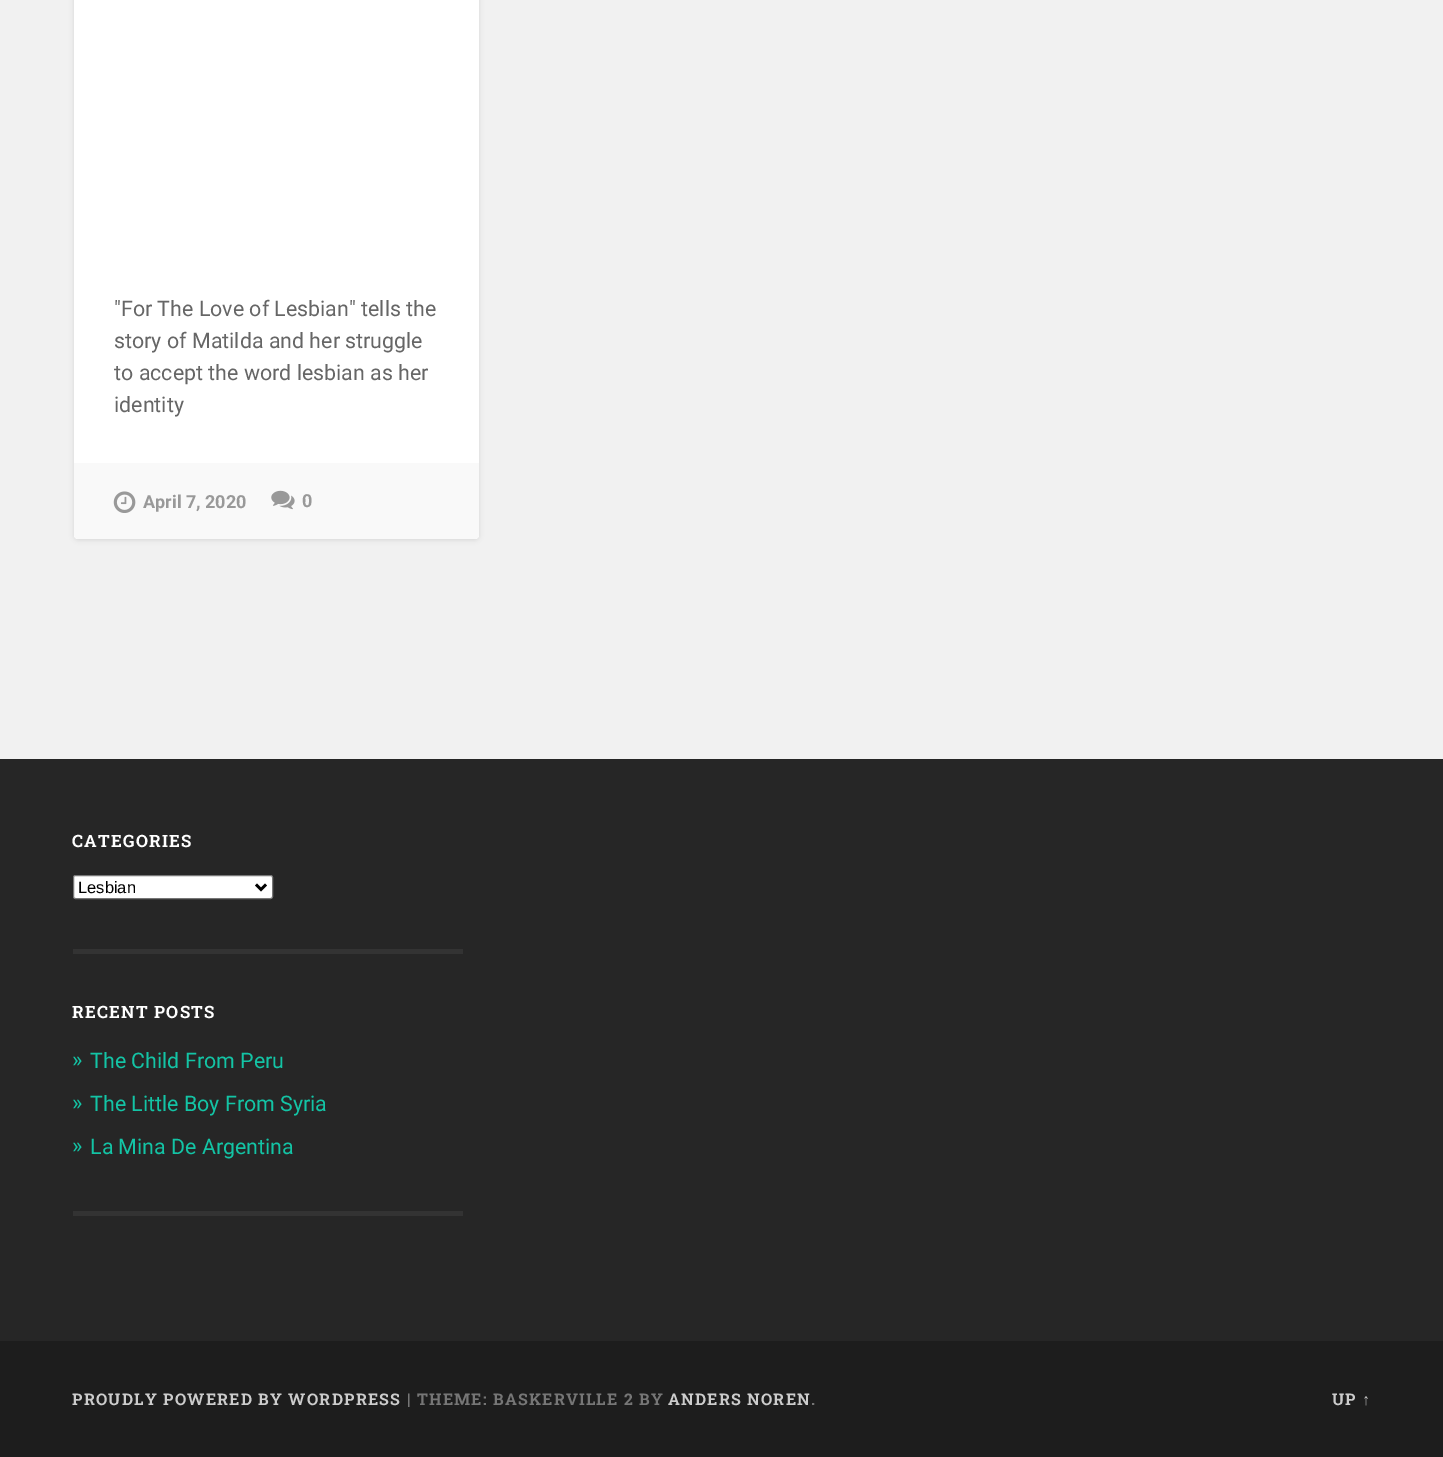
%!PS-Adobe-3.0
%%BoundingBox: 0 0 1443 1457
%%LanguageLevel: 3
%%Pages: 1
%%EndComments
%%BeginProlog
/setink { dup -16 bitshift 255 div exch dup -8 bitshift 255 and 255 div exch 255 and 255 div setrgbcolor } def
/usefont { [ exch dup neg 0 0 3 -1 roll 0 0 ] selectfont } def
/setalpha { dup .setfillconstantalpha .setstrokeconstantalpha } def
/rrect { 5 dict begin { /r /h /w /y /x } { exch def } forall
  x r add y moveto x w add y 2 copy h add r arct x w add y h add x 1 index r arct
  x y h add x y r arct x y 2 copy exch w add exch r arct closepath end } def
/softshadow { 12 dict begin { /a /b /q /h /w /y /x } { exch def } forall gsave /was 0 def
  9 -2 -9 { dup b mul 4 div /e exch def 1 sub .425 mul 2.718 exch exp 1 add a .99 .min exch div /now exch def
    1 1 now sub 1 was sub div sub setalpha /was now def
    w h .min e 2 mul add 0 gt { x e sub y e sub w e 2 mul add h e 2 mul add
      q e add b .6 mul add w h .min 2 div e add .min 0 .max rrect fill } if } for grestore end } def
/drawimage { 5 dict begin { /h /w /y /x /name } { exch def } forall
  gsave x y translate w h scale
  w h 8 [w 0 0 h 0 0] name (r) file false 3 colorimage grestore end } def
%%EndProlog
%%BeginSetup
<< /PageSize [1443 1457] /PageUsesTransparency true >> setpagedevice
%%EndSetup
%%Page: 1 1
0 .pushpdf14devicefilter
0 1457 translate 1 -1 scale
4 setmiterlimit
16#F1F1F1 setink
0 0 1443 1457 rectfill
16#000000 setink
74 -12 405 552 4 2.5 0.1 softshadow
16#FFFFFF setink
74 -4 405 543 4 rrect fill
/Roboto-Regular 21.4 usefont
16#666666 setink
[
    [("For The Love of Lesbian" tells the) 114 316]
    [(story of Matilda and her struggle) 114 348]
    [(to accept the word lesbian as her) 114 380]
    [(identity) 114 412]
] { aload pop moveto show } forall
16#F9F9F9 setink
74 463 moveto 479 463 lineto 479 535 lineto 479 537 477 539 475 539 curveto 78 539 lineto 76 539 74 537 74 535 curveto closepath fill
(img1.raw) 113 491 23 22 drawimage
/Roboto-Bold 18 usefont
16#999999 setink
143 508 moveto (April 7, 2020) show
(img2.raw) 271 490 24 20 drawimage
302 507 moveto (0) show
16#262626 setink
0 759 1443 582 rectfill
/RobotoSlab-Bold 17 usefont
16#FFFFFF setink
72 847 moveto 1.25 0 (CATEGORIES) ashow
73.5 875.5 199 23 2 rrect gsave fill grestore
16#767676 setink
stroke
16#000000 setink
2.5 setlinewidth
256 884.5 moveto 261 889.5 lineto 266 884.5 lineto stroke
/LiberationSans-Regular 16.5 usefont
78 893 moveto (Lesbian) show
16#333333 setink
73 949 390 5 rectfill
/RobotoSlab-Bold 17 usefont
16#FFFFFF setink
72 1018 moveto 1.25 0 (RECENT POSTS) ashow
/Roboto-Regular 22 usefont
16#13C4A5 setink
72 1067 moveto (») show
/Roboto-Regular 21.4 usefont
90 1068 moveto (The Child From Peru) show
/Roboto-Regular 22 usefont
72 1110 moveto (») show
/Roboto-Regular 21.4 usefont
90 1111 moveto (The Little Boy From Syria) show
/Roboto-Regular 22 usefont
72 1153 moveto (») show
/Roboto-Regular 21.4 usefont
90 1154 moveto (La Mina De Argentina) show
16#333333 setink
73 1211 390 5 rectfill
16#1D1D1D setink
0 1341 1443 116 rectfill
/RobotoSlab-Bold 16 usefont
16#CCCCCC setink
72 1405 moveto 1.25 0 (PROUDLY POWERED BY WORDPRESS) ashow
16#767676 setink
407 1405 moveto 1.25 0 (| THEME: BASKERVILLE 2 BY) ashow
16#CCCCCC setink
668 1405 moveto 1.25 0 (ANDERS NOREN) ashow
16#767676 setink
811 1405 moveto 1.25 0 (.) ashow
16#CCCCCC setink
1332 1405 moveto 1.25 0 (UP) ashow
/LiberationSans-Bold 16 usefont
1362 1405 moveto 1.25 0 (↑) ashow
.poppdf14devicefilter showpage
%%EOF
